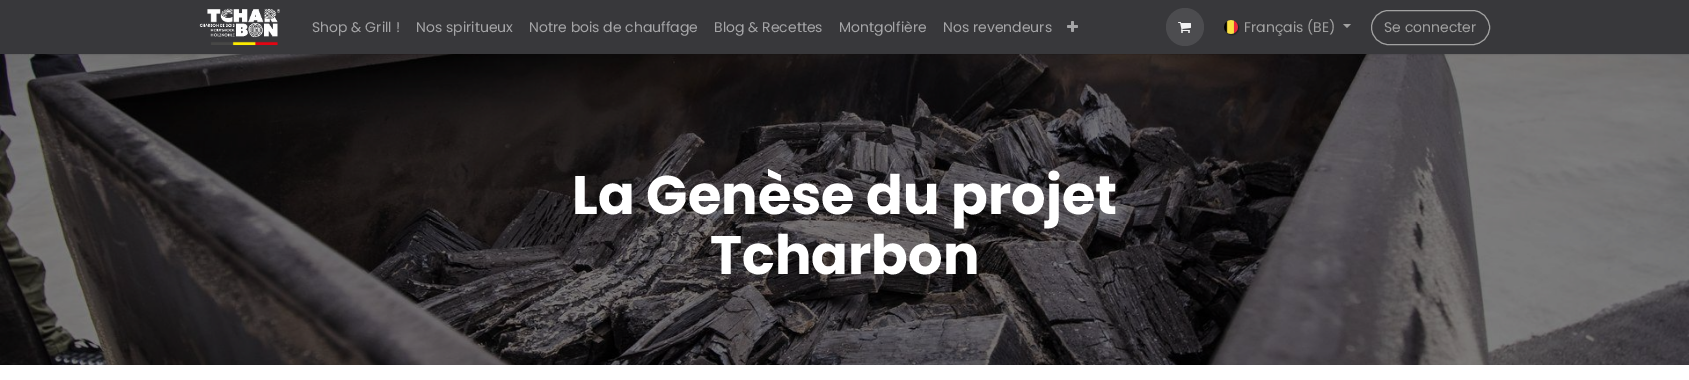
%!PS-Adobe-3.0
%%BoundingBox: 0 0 1689 380
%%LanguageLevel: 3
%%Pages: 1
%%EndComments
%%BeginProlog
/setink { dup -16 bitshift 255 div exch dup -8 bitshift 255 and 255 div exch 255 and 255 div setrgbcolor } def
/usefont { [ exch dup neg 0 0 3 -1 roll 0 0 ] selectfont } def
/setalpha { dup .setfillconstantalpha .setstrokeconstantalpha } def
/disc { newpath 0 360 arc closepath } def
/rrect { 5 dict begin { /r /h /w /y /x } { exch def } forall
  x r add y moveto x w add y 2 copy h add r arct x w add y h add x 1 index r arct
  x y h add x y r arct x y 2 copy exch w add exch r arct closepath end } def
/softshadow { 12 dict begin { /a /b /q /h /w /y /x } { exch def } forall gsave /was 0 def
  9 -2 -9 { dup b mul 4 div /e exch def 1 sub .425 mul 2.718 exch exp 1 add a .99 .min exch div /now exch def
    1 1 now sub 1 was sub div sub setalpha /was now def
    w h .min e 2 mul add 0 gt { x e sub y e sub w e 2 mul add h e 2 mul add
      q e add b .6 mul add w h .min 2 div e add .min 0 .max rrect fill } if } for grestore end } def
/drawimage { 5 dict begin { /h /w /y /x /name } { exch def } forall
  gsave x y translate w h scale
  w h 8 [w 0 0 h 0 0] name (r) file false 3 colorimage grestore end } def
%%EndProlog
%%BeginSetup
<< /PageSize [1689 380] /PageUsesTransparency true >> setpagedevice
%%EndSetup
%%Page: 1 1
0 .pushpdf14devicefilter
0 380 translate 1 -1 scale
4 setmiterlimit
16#FFFFFF setink
0 0 1689 380 rectfill
(img5.raw) 0 54 1689 311 drawimage
16#000000 setink
0 0 1689 54 0 1 0.25 softshadow
16#38383B setink
0 0 1689 54 rectfill
(img1.raw) 199 8 81 38 drawimage
/Poppins-Regular 14 usefont
16#A5A5A7 setink
[
    [(Shop & Grill !) 312 32]
    [(Nos spiritueux) 416 32]
    [(Notre bois de chauffage) 529 32]
    [(Blog & Recettes) 714 32]
    [(Montgolfière) 839 32]
    [(Nos revendeurs) 943 32]
] { aload pop moveto show } forall
(img2.raw) 1067 21 11 11 drawimage
16#4C4C4F setink
1185 27 19 disc fill
(img3.raw) 1178 22 13 11 drawimage
16#000000 setink
1225 21 14 14 7 0.5 0.43 softshadow
16#A1A1A1 setink
1244 32 moveto (Français \(BE\)) show
(img4.raw) 1224 20 14 14 drawimage
1343 24 moveto 1351 24 lineto 1347 28 lineto closepath fill
1371.5 10.5 118 34 17 rrect stroke
1384 32 moveto (Se connecter) show
/Poppins-Bold 54.25 usefont
16#FFFFFF setink
572 214 moveto (La Genèse du projet) show
710 274 moveto (Tcharbon) show
.poppdf14devicefilter showpage
%%EOF
